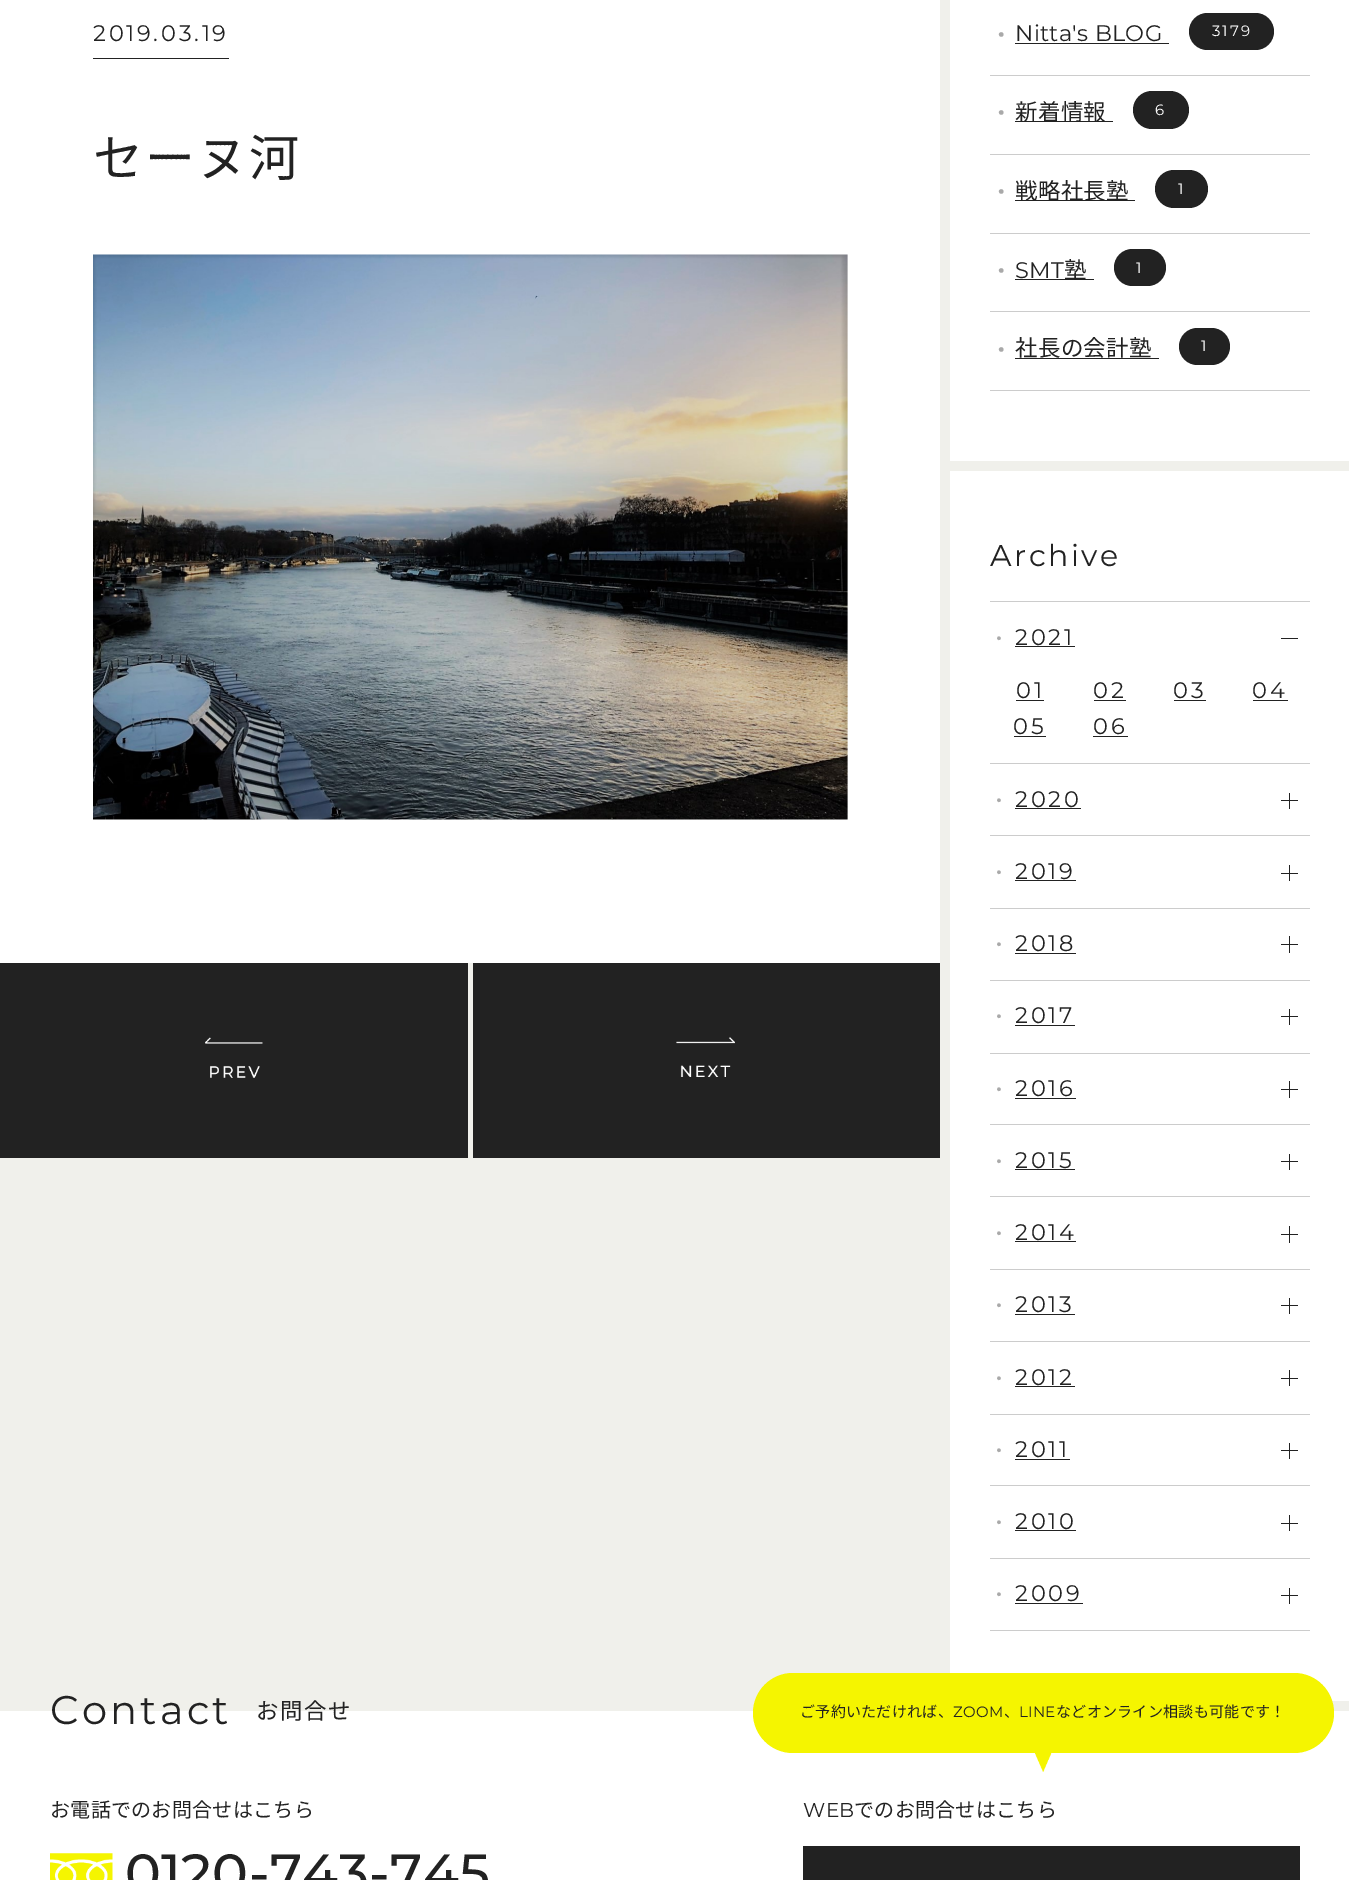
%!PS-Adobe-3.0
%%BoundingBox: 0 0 1349 1880
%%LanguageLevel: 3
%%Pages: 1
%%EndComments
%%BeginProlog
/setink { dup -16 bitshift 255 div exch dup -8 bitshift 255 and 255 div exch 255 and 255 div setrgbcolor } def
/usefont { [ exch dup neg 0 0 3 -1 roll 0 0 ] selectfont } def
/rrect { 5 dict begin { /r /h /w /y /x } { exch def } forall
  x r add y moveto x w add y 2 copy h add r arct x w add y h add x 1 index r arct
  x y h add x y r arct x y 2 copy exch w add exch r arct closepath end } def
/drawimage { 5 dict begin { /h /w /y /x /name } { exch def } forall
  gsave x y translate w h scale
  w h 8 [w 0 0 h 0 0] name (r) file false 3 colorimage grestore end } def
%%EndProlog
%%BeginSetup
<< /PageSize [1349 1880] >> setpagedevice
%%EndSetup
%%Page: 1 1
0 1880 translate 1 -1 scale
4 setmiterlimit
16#F0F0EB setink
0 0 1349 1880 rectfill
16#FFFFFF setink
0 0 940 963 rectfill
16#222222 setink
93 58 136 1 rectfill
/Montserrat-Regular 22.5 usefont
93 41 moveto 2.75 0 (2019.03.19) ashow
/NotoSansJP-Regular 50 usefont
93 176 moveto 2 0 (セーヌ河) ashow
(img1.raw) 93 254 755 566 drawimage
0 963 468 195 rectfill
(img2.raw) 205 1037 58 41 drawimage
473 963 467 195 rectfill
(img3.raw) 676 1037 59 40 drawimage
16#FFFFFF setink
950 0 399 461 rectfill
16#CCCCCC setink
990 390 320 1 rectfill
/NotoSansJP-Regular 22.5 usefont
16#A9A9A9 setink
990 43 moveto 0.3 0 (・) ashow
/Montserrat-Regular 22.5 usefont
16#222222 setink
1015 41 moveto 0.3 0 (Nitta's BLOG) ashow
1015 43 154 1 rectfill
1189 13 85 37 18.5 rrect fill
/Montserrat-Regular 15 usefont
16#FFFFFF setink
1212 36 moveto 2 0 (3179) ashow
16#CCCCCC setink
990 75 320 1 rectfill
/NotoSansJP-Regular 22.5 usefont
16#A9A9A9 setink
990 121 moveto 0.3 0 (・) ashow
16#222222 setink
1015 121 98 1 rectfill
1015 120 moveto 0.3 0 (新着情報) ashow
1133 91 56 38 19 rrect fill
/Montserrat-Regular 15 usefont
16#FFFFFF setink
1155 115 moveto 2 0 (6) ashow
16#CCCCCC setink
990 154 320 1 rectfill
/NotoSansJP-Regular 22.5 usefont
16#A9A9A9 setink
990 200 moveto 0.3 0 (・) ashow
16#222222 setink
1015 200 120 1 rectfill
1015 199 moveto 0.3 0 (戦略社長塾) ashow
1155 170 53 38 19 rrect fill
/Montserrat-Regular 15 usefont
16#FFFFFF setink
1178 194 moveto 2 0 (1) ashow
16#CCCCCC setink
990 233 320 1 rectfill
/NotoSansJP-Regular 22.5 usefont
16#A9A9A9 setink
990 279 moveto 0.3 0 (・) ashow
/Montserrat-Regular 22.5 usefont
16#222222 setink
1015 278 moveto 0.3 0 (SMT) ashow
1015 279 79 1 rectfill
/NotoSansJP-Regular 22.5 usefont
1064 278 moveto 0.3 0 (塾) ashow
1114 249 52 37 18.5 rrect fill
/Montserrat-Regular 15 usefont
16#FFFFFF setink
1136 273 moveto 2 0 (1) ashow
16#CCCCCC setink
990 311 320 1 rectfill
/NotoSansJP-Regular 22.5 usefont
16#A9A9A9 setink
990 358 moveto 0.3 0 (・) ashow
16#222222 setink
1015 356 moveto 0.3 0 (社長の会計塾) ashow
1015 358 144 1 rectfill
1179 328 51 37 18.5 rrect fill
/Montserrat-Regular 15 usefont
16#FFFFFF setink
1201 351 moveto 2 0 (1) ashow
950 471 399 1230 rectfill
/Montserrat-Regular 30 usefont
16#222222 setink
990 566 moveto 2.5 0 (Archive) ashow
16#CCCCCC setink
990 1630 320 1 rectfill
990 601 320 1 rectfill
/NotoSansJP-Regular 18 usefont
16#A9A9A9 setink
990 645 moveto 0.3 0 (・) ashow
/Montserrat-Regular 22.5 usefont
16#222222 setink
1015 645 moveto 2.75 0 (2021) ashow
1015 646 60 1 rectfill
1281 638 17 1 rectfill
1016 698 moveto 2.75 0 (01) ashow
1016 700 28 1 rectfill
1093 698 moveto 2.75 0 (02) ashow
1094 700 32 1 rectfill
1173 698 moveto 2.75 0 (03) ashow
1174 700 32 1 rectfill
1252 698 moveto 2.75 0 (04) ashow
1253 700 35 1 rectfill
1013 734 moveto 2.75 0 (05) ashow
1014 736 32 1 rectfill
1093 734 moveto 2.75 0 (06) ashow
1093 736 35 1 rectfill
16#CCCCCC setink
990 763 320 1 rectfill
/NotoSansJP-Regular 18 usefont
16#A9A9A9 setink
990 807 moveto 0.3 0 (・) ashow
/Montserrat-Regular 22.5 usefont
16#222222 setink
1015 807 moveto 2.75 0 (2020) ashow
[
    [1015 808 66 1 16#222222]
    [1281 800 17 1 16#222222]
    [1289 793 1 16 16#222222]
    [990 835 320 1 16#CCCCCC]
] { aload pop setink rectfill } forall
/NotoSansJP-Regular 18 usefont
16#A9A9A9 setink
990 879 moveto 0.3 0 (・) ashow
/Montserrat-Regular 22.5 usefont
16#222222 setink
1015 879 moveto 2.75 0 (2019) ashow
[
    [1015 880 61 1 16#222222]
    [1281 873 17 1 16#222222]
    [1289 865 1 16 16#222222]
    [990 908 320 1 16#CCCCCC]
] { aload pop setink rectfill } forall
/NotoSansJP-Regular 18 usefont
16#A9A9A9 setink
990 951 moveto 0.3 0 (・) ashow
/Montserrat-Regular 22.5 usefont
16#222222 setink
1015 951 moveto 2.75 0 (2018) ashow
[
    [1015 953 61 1 16#222222]
    [1281 944 17 1 16#222222]
    [1289 936 1 17 16#222222]
    [990 980 320 1 16#CCCCCC]
] { aload pop setink rectfill } forall
/NotoSansJP-Regular 18 usefont
16#A9A9A9 setink
990 1023 moveto 0.3 0 (・) ashow
/Montserrat-Regular 22.5 usefont
16#222222 setink
1015 1023 moveto 2.75 0 (2017) ashow
[
    [1015 1025 60 1 16#222222]
    [1281 1016 17 1 16#222222]
    [1289 1009 1 16 16#222222]
    [990 1053 320 1 16#CCCCCC]
] { aload pop setink rectfill } forall
/NotoSansJP-Regular 18 usefont
16#A9A9A9 setink
990 1096 moveto 0.3 0 (・) ashow
/Montserrat-Regular 22.5 usefont
16#222222 setink
1015 1096 moveto 2.75 0 (2016) ashow
[
    [1015 1098 61 1 16#222222]
    [1281 1089 17 1 16#222222]
    [1289 1081 1 17 16#222222]
    [990 1124 320 1 16#CCCCCC]
] { aload pop setink rectfill } forall
/NotoSansJP-Regular 18 usefont
16#A9A9A9 setink
990 1168 moveto 0.3 0 (・) ashow
/Montserrat-Regular 22.5 usefont
16#222222 setink
1015 1168 moveto 2.75 0 (2015) ashow
[
    [1015 1169 60 1 16#222222]
    [1281 1161 17 1 16#222222]
    [1289 1154 1 16 16#222222]
    [990 1196 320 1 16#CCCCCC]
] { aload pop setink rectfill } forall
/NotoSansJP-Regular 18 usefont
16#A9A9A9 setink
990 1240 moveto 0.3 0 (・) ashow
/Montserrat-Regular 22.5 usefont
16#222222 setink
1015 1240 moveto 2.75 0 (2014) ashow
[
    [1015 1241 61 1 16#222222]
    [1281 1234 17 1 16#222222]
    [1289 1226 1 17 16#222222]
    [990 1269 320 1 16#CCCCCC]
] { aload pop setink rectfill } forall
/NotoSansJP-Regular 18 usefont
16#A9A9A9 setink
990 1312 moveto 0.3 0 (・) ashow
/Montserrat-Regular 22.5 usefont
16#222222 setink
1015 1312 moveto 2.75 0 (2013) ashow
[
    [1015 1314 60 1 16#222222]
    [1281 1305 17 1 16#222222]
    [1289 1298 1 16 16#222222]
    [990 1341 320 1 16#CCCCCC]
] { aload pop setink rectfill } forall
/NotoSansJP-Regular 18 usefont
16#A9A9A9 setink
990 1385 moveto 0.3 0 (・) ashow
/Montserrat-Regular 22.5 usefont
16#222222 setink
1015 1385 moveto 2.75 0 (2012) ashow
[
    [1015 1386 60 1 16#222222]
    [1281 1378 17 1 16#222222]
    [1289 1370 1 16 16#222222]
    [990 1414 320 1 16#CCCCCC]
] { aload pop setink rectfill } forall
/NotoSansJP-Regular 18 usefont
16#A9A9A9 setink
990 1457 moveto 0.3 0 (・) ashow
/Montserrat-Regular 22.5 usefont
16#222222 setink
1015 1457 moveto 2.75 0 (2011) ashow
[
    [1015 1459 55 1 16#222222]
    [1281 1450 17 1 16#222222]
    [1289 1443 1 16 16#222222]
    [990 1485 320 1 16#CCCCCC]
] { aload pop setink rectfill } forall
/NotoSansJP-Regular 18 usefont
16#A9A9A9 setink
990 1529 moveto 0.3 0 (・) ashow
/Montserrat-Regular 22.5 usefont
16#222222 setink
1015 1529 moveto 2.75 0 (2010) ashow
[
    [1015 1530 61 1 16#222222]
    [1281 1523 17 1 16#222222]
    [1289 1515 1 16 16#222222]
    [990 1558 320 1 16#CCCCCC]
] { aload pop setink rectfill } forall
/NotoSansJP-Regular 18 usefont
16#A9A9A9 setink
990 1601 moveto 0.3 0 (・) ashow
/Montserrat-Regular 22.5 usefont
16#222222 setink
1015 1601 moveto 2.75 0 (2009) ashow
[
    [1015 1603 68 1 16#222222]
    [1281 1595 17 1 16#222222]
    [1289 1588 1 16 16#222222]
    [0 1711 1349 169 16#FFFFFF]
] { aload pop setink rectfill } forall
/Montserrat-Regular 40 usefont
16#222222 setink
50 1724 moveto 3.25 0 (Contact) ashow
/NotoSansJP-Regular 22.5 usefont
256 1719 moveto 1.5 0 (お問合せ) ashow
/NotoSansJP-Regular 20 usefont
50 1817 moveto 0.3 0 (お電話でのお問合せはこちら) ashow
(img4.raw) 50 1853 63 27 drawimage
/Montserrat-Medium 53.75 usefont
125 1892 moveto 0.3 0 (0120-743-745) ashow
16#F5F500 setink
753 1673 581 80 40 rrect fill
/NotoSansJP-Regular 15 usefont
16#222222 setink
800 1717 moveto 0.3 0 (ご予約いただければ、) ashow
/Montserrat-Regular 15 usefont
953 1717 moveto 0.3 0 (ZOOM) ashow
/NotoSansJP-Regular 15 usefont
1004 1717 moveto 0.3 0 (、) ashow
/Montserrat-Regular 15 usefont
1019 1717 moveto 0.3 0 (LINE) ashow
/NotoSansJP-Regular 15 usefont
1056 1717 moveto 0.3 0 (などオンライン相談も可能です！) ashow
(img5.raw) 1034 1753 18 19 drawimage
/Montserrat-Regular 20 usefont
803 1817 moveto 0.3 0 (WEB) ashow
/NotoSansJP-Regular 20 usefont
854 1817 moveto 0.3 0 (でのお問合せはこちら) ashow
803 1846 497 34 rectfill
showpage
%%EOF
